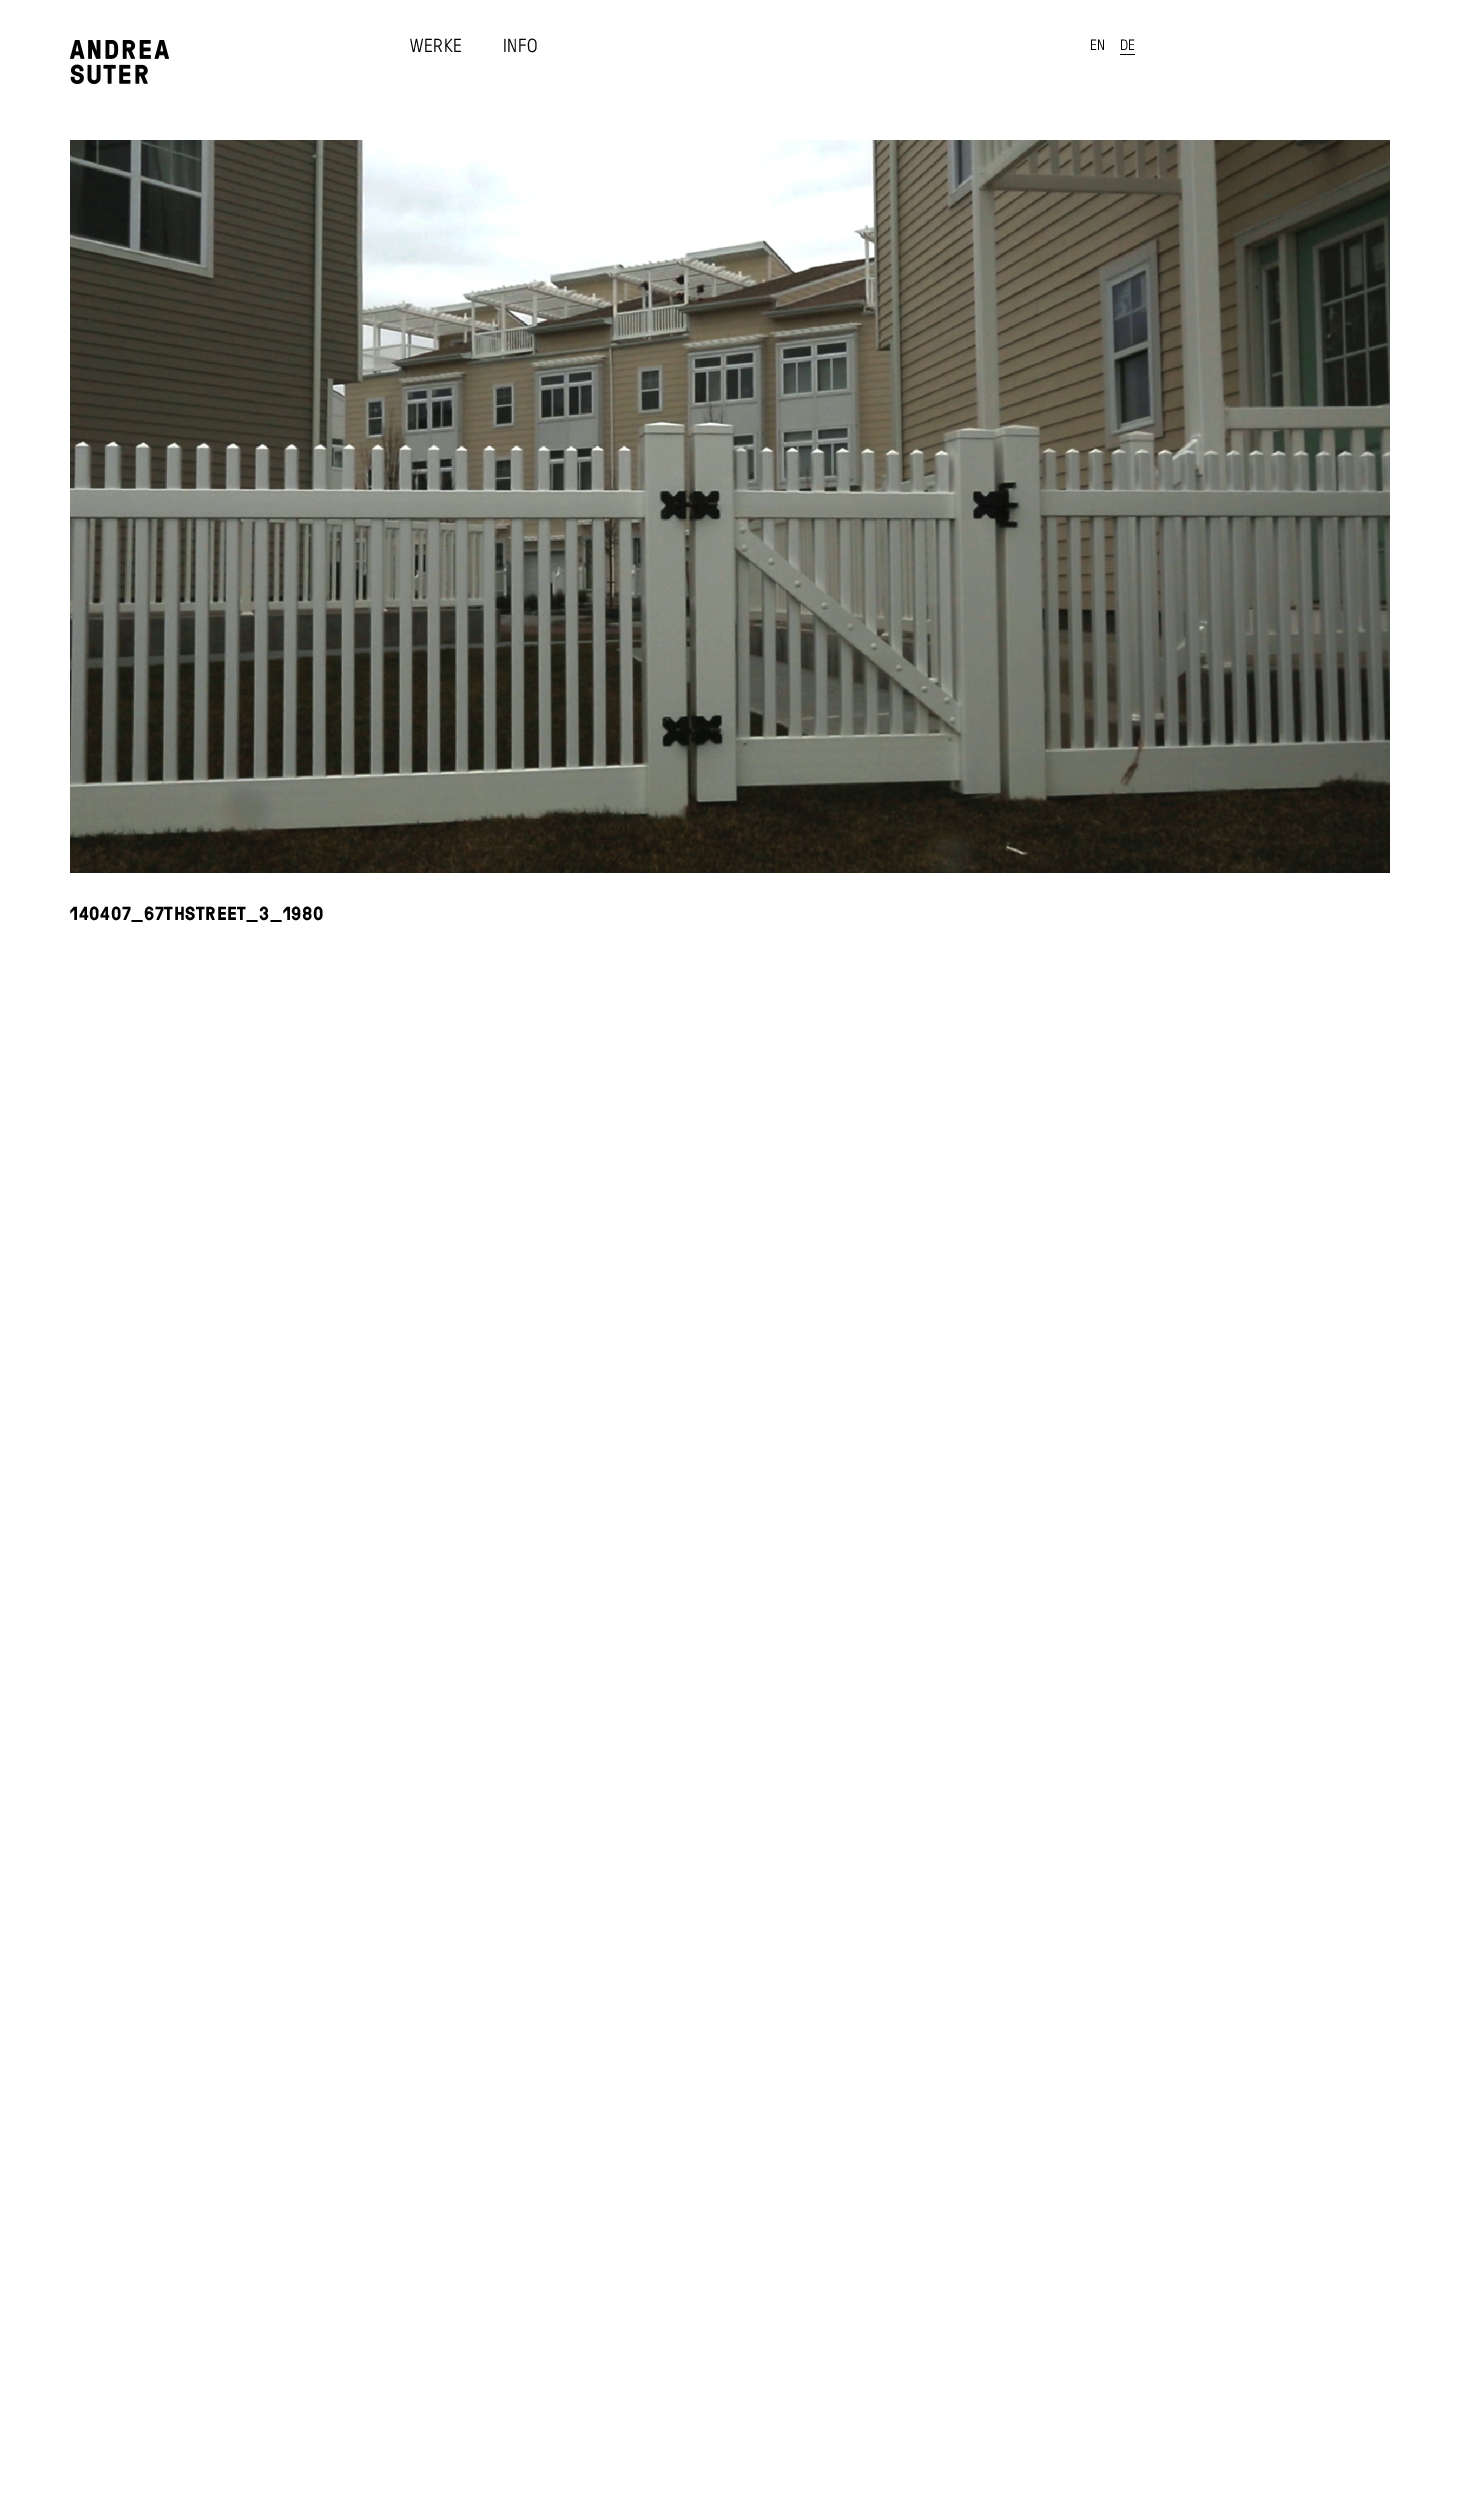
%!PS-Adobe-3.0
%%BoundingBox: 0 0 1460 2500
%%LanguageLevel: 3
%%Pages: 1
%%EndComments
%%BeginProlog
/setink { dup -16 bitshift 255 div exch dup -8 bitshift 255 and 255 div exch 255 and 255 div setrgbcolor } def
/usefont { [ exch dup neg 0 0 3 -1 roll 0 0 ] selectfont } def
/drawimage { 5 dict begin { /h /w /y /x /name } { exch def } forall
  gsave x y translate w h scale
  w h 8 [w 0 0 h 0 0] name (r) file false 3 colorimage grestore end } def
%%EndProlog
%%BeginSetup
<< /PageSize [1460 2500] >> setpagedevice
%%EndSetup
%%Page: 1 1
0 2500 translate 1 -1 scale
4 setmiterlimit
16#FFFFFF setink
0 0 1460 2500 rectfill
(img1.raw) 70 40 99 44 drawimage
/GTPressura-Light 19 usefont
16#000000 setink
410 52 moveto 0.6 0 (WERKE) ashow
503 52 moveto 0.6 0 (INFO) ashow
/GTPressura-Light 15 usefont
1090 50 moveto (EN) show
1120 50 moveto (DE) show
1120 54 15 1 rectfill
(img2.raw) 70 140 1320 733 drawimage
/GTPressura-Bold 19 usefont
70 920 moveto 0.6 0 (140407_67THSTREET_3_1980) ashow
showpage
%%EOF
